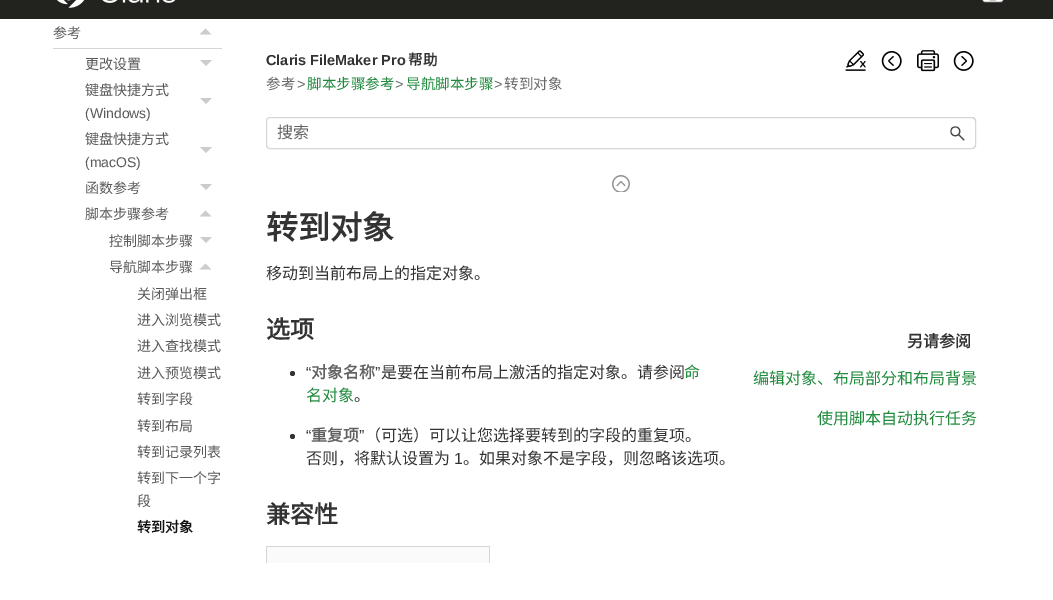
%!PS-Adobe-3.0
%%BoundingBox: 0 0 1053 600
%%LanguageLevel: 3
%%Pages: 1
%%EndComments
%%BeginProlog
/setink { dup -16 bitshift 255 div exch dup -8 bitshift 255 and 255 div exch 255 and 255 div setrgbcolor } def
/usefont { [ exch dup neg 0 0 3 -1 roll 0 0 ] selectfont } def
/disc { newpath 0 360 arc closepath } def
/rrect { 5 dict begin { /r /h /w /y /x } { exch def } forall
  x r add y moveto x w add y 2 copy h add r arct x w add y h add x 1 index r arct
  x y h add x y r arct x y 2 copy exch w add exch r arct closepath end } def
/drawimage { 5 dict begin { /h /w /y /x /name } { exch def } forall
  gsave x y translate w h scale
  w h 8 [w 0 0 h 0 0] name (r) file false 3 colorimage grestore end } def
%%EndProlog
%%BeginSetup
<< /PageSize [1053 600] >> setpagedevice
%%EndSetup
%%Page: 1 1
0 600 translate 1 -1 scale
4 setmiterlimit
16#FFFFFF setink
0 0 1053 600 rectfill
16#22221F setink
0 0 1053 19 rectfill
(img1.raw) 57 0 119 8 drawimage
(img2.raw) 982 0 22 3 drawimage
16#D6D6D6 setink
53 48 169 1 rectfill
/NotoSansCJKSC-Regular 14 usefont
16#595959 setink
53 38 moveto (参考) show
16#CCCCCC setink
211.5 34.5 moveto 199.5 34.5 lineto 205.5 28.5 lineto closepath fill
16#595959 setink
85 69 moveto (更改设置) show
16#CCCCCC setink
200 60 moveto 212 60 lineto 206 66 lineto closepath fill
16#595959 setink
85 95 moveto (键盘快捷方式) show
16#CCCCCC setink
200 98 moveto 212 98 lineto 206 104 lineto closepath fill
/LiberationSans-Regular 14 usefont
16#595959 setink
85 118 moveto (\(Windows\)) show
/NotoSansCJKSC-Regular 14 usefont
85 144 moveto (键盘快捷方式) show
16#CCCCCC setink
200 147 moveto 212 147 lineto 206 153 lineto closepath fill
/LiberationSans-Regular 14 usefont
16#595959 setink
85 167 moveto (\(macOS\)) show
/NotoSansCJKSC-Regular 14 usefont
85 193 moveto (函数参考) show
16#CCCCCC setink
200 184 moveto 212 184 lineto 206 190 lineto closepath fill
16#595959 setink
85 219 moveto (脚本步骤参考) show
16#CCCCCC setink
211.5 216.5 moveto 199.5 216.5 lineto 205.5 210.5 lineto closepath fill
16#595959 setink
109 246 moveto (控制脚本步骤) show
16#CCCCCC setink
200 237 moveto 212 237 lineto 206 243 lineto closepath fill
16#595959 setink
109 272 moveto (导航脚本步骤) show
16#CCCCCC setink
211.5 269.5 moveto 199.5 269.5 lineto 205.5 263.5 lineto closepath fill
16#595959 setink
[
    [(关闭弹出框) 137 299]
    [(进入浏览模式) 137 325]
    [(进入查找模式) 137 351]
    [(进入预览模式) 137 378]
    [(转到字段) 137 404]
    [(转到布局) 137 431]
    [(转到记录列表) 137 457]
    [(转到下一个字) 137 483]
    [(段) 137 506]
] { aload pop moveto show } forall
/NotoSansCJKSC-Bold 14 usefont
16#111111 setink
137 532 moveto (转到对象) show
/LiberationSans-Bold 14.5 usefont
16#333333 setink
266 65 moveto (Claris FileMaker Pro) show
/NotoSansCJKSC-Bold 14.5 usefont
408 65 moveto (帮助) show
(img3.raw) 845 50 21 21 drawimage
(img4.raw) 881 51 21 20 drawimage
(img5.raw) 917 50 22 22 drawimage
(img6.raw) 953 51 21 20 drawimage
/NotoSansCJKSC-Regular 14.5 usefont
16#696969 setink
266 89 moveto (参考) show
/LiberationSans-Regular 14.5 usefont
297 89 moveto (>) show
/NotoSansCJKSC-Regular 14.5 usefont
16#208A3D setink
307 89 moveto (脚本步骤参考) show
/LiberationSans-Regular 14.5 usefont
16#696969 setink
395 89 moveto (>) show
/NotoSansCJKSC-Regular 14.5 usefont
16#208A3D setink
406 89 moveto (导航脚本步骤) show
/LiberationSans-Regular 14.5 usefont
16#696969 setink
494 89 moveto (>) show
/NotoSansCJKSC-Regular 14.5 usefont
504 89 moveto (转到对象) show
16#D6D6D6 setink
266.5 117.5 709 31 3.5 rrect stroke
/NotoSansCJKSC-Regular 16 usefont
16#626262 setink
277 138 moveto (搜索) show
(img7.raw) 950 126 15 15 drawimage
16#D6D6D6 setink
940 117 moveto 972 117 lineto 974 117 976 119 976 121 curveto 976 145 lineto 976 147 974 149 972 149 curveto 940 149 lineto closepath 940 118 moveto 972 118 lineto 973.5 118 975 119.5 975 121 curveto 975 145 lineto 975 146.5 973.5 148 972 148 curveto 940 148 lineto closepath eofill
(img8.raw) 612 175 18 17 drawimage
/NotoSansCJKSC-Bold 32 usefont
16#333333 setink
266 239 moveto (转到对象) show
/NotoSansCJKSC-Regular 16 usefont
266 279 moveto (移动到当前布局上的指定对象。) show
/NotoSansCJKSC-Bold 24 usefont
266 338 moveto (选项) show
292.5 373.5 2.5 disc fill
/LiberationSans-Regular 16 usefont
306 378 moveto (“) show
/NotoSansCJKSC-Bold 16 usefont
16#626262 setink
311 378 moveto (对象名称) show
/LiberationSans-Regular 16 usefont
16#333333 setink
375 378 moveto (”) show
/NotoSansCJKSC-Regular 16 usefont
381 378 moveto (是要在当前布局上激活的指定对象。请参阅) show
16#208A3D setink
684 378 moveto (命) show
306 401 moveto (名对象) show
16#333333 setink
354 401 moveto (。) show
292.5 436.5 2.5 disc fill
/LiberationSans-Regular 16 usefont
306 441 moveto (“) show
/NotoSansCJKSC-Bold 16 usefont
16#626262 setink
311 441 moveto (重复项) show
/LiberationSans-Regular 16 usefont
16#333333 setink
359 441 moveto (”) show
/NotoSansCJKSC-Regular 16 usefont
365 441 moveto (（可选）可以让您选择要转到的字段的重复项。) show
306 464 moveto (否则，将默认设置为) show
/LiberationSans-Regular 16 usefont
454 464 moveto (1) show
/NotoSansCJKSC-Regular 16 usefont
463 464 moveto (。如果对象不是字段，则忽略该选项。) show
/NotoSansCJKSC-Bold 16 usefont
907 347 moveto (另请参阅) show
/NotoSansCJKSC-Regular 16 usefont
16#208A3D setink
753 384 moveto (编辑对象、布局部分和布局背景) show
817 424 moveto (使用脚本自动执行任务) show
/NotoSansCJKSC-Bold 24 usefont
16#333333 setink
266 523 moveto (兼容性) show
[
    [267 547 222 16 16#FAFAFA]
    [266 546 224 1 16#D6D6D6]
    [489 546 1 17 16#D6D6D6]
    [266 546 1 17 16#D6D6D6]
] { aload pop setink rectfill } forall
showpage
%%EOF
